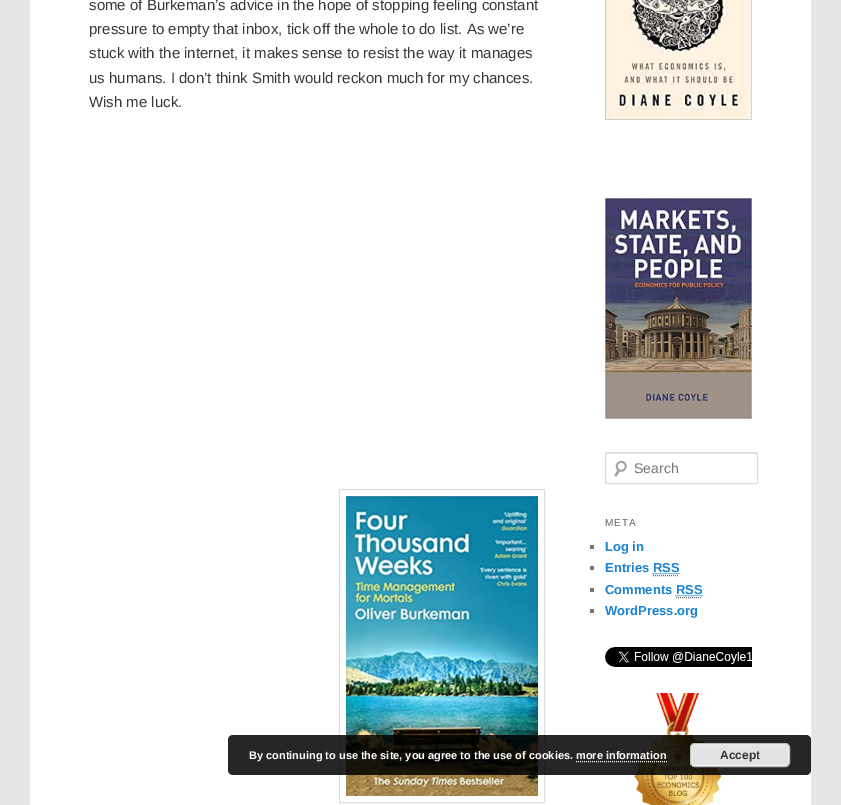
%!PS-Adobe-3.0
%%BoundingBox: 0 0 841 805
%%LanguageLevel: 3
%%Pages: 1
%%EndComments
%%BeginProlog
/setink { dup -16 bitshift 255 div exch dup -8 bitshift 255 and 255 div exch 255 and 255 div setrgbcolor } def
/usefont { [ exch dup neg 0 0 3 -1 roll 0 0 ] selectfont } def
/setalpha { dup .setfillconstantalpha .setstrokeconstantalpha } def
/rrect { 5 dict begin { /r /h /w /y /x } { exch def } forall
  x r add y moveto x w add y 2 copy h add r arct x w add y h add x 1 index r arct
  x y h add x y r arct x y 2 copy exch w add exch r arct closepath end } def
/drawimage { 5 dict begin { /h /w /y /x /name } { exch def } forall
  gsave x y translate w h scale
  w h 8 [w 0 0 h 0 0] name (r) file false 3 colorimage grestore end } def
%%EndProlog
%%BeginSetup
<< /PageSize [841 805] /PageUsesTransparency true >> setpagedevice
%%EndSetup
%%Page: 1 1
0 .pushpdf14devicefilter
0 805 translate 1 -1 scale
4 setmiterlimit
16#E6E6E6 setink
0 0 841 805 rectfill
16#FFFFFF setink
30 0 781 805 rectfill
/LiberationSans-Regular 15 usefont
16#373737 setink
[
    [(some of Burkeman’s advice in the hope of stopping feeling constant) 89 10]
    [(pressure to empty that inbox, tick off the whole to do list. As we’re) 89 34]
    [(stuck with the internet, it makes sense to resist the way it manages) 89 58]
    [(us humans. I don’t think Smith would reckon much for my chances.) 89 83]
    [(Wish me luck.) 89 107]
] { aload pop moveto show } forall
16#DDDDDD setink
339.5 489.5 205 313 rectstroke
(img1.raw) 346 496 192 300 drawimage
(img2.raw) 605 0 147 120 drawimage
(img3.raw) 605 198 147 221 drawimage
(img4.raw) 614 460 13 17 drawimage
16#E6E6E6 setink
607 454 moveto 756 454 lineto 757 454 757 454 757 455 curveto 757 453 lineto 607 453 lineto 606 453 606 454 606 455 curveto 606 454 606 454 607 454 curveto closepath fill
16#DDDDDD setink
605.5 452.5 152 31 1.5 rrect stroke
/LiberationSans-Regular 14 usefont
16#757575 setink
634 473 moveto (Search) show
/LiberationSans-Regular 10 usefont
16#666666 setink
605 526 moveto 1 0 (META) ashow
16#777777 setink
590 545 4 4 rectfill
/LiberationSans-Bold 13 usefont
16#1982D1 setink
605 551 moveto (Log in) show
16#777777 setink
590 566 4 4 rectfill
16#1982D1 setink
605 572 moveto (Entries RSS) show
16#666666 setink
[1 1] 0 setdash
653 575.5 moveto 679 575.5 lineto stroke
16#1982D1 setink
652.5 573.5 moveto 679.5 573.5 lineto stroke
16#777777 setink
590 588 4 4 rectfill
16#1982D1 setink
605 594 moveto (Comments RSS) show
16#666666 setink
676 597.5 moveto 702 597.5 lineto stroke
16#1982D1 setink
675.5 595.5 moveto 702.5 595.5 lineto stroke
16#777777 setink
590 609 4 4 rectfill
16#1982D1 setink
605 615 moveto (WordPress.org) show
(img5.raw) 605 647 147 20 drawimage
(img6.raw) 634 693 88 112 drawimage
0.85 setalpha
16#000000 setink
228 735 583 40 5 rrect fill
/LiberationSans-Bold 11 usefont
1 setalpha
16#FFFFFF setink
249 759 moveto (By continuing to use the site, you agree to the use of cookies. more information) show
16#E3E3E3 setink
690 743 100 24 5 rrect fill
16#F6F6F6 setink
[] 0 setdash
691.5 744.5 97 21 3.5 rrect stroke
16#BBBBBB setink
690.5 743.5 99 23 4.5 rrect stroke
/LiberationSans-Bold 12 usefont
16#373737 setink
720 759 moveto (Accept) show
16#FFFFFF setink
[1 1] 0 setdash
576 761.5 moveto 667 761.5 lineto stroke
.poppdf14devicefilter showpage
%%EOF
